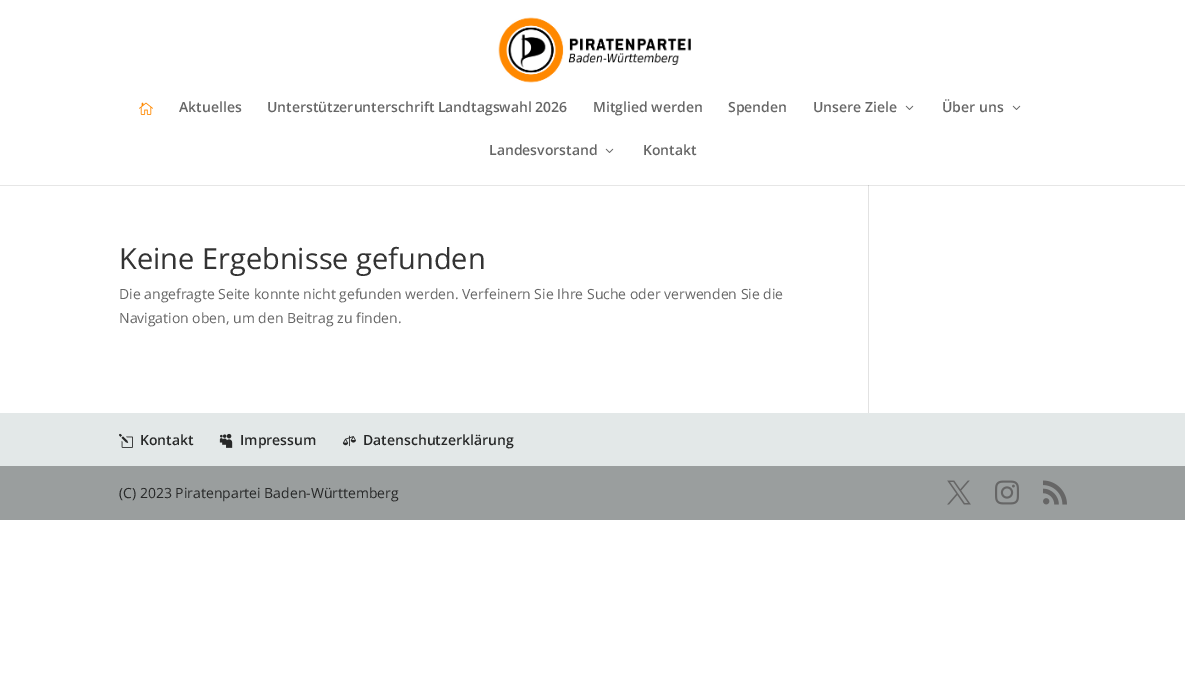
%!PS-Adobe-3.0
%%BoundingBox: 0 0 1185 686
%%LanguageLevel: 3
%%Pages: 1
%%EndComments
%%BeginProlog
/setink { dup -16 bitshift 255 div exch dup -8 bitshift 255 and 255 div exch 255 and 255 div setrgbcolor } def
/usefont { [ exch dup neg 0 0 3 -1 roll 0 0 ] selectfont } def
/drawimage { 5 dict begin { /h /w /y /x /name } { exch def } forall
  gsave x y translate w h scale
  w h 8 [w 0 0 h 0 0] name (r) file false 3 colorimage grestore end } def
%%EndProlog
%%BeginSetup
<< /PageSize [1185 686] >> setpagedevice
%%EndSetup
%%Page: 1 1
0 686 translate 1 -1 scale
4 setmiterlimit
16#FFFFFF setink
0 0 1185 686 rectfill
16#E6E6E6 setink
0 185 1185 1 rectfill
(img1.raw) 498 17 193 66 drawimage
(img2.raw) 139 102 14 13 drawimage
/OpenSans-SemiBold 14 usefont
16#666666 setink
[
    [(Aktuelles) 179 112]
    [(Unterstützerunterschrift Landtagswahl 2026) 267 112]
    [(Mitglied werden) 593 112]
    [(Spenden) 728 112]
    [(Unsere Ziele) 813 112]
] { aload pop moveto show } forall
(img3.raw) 905 105 9 5 drawimage
942 112 moveto (Über uns) show
(img3.raw) 1012 105 9 5 drawimage
489 155 moveto (Landesvorstand) show
(img3.raw) 605 148 9 5 drawimage
643 155 moveto (Kontakt) show
/OpenSans-Regular 29 usefont
16#333333 setink
119 269 moveto (Keine Ergebnisse gefunden) show
/OpenSans-Regular 14 usefont
16#666666 setink
119 299 moveto (Die angefragte Seite konnte nicht gefunden werden. Verfeinern Sie Ihre Suche oder verwenden Sie die) show
119 323 moveto (Navigation oben, um den Beitrag zu finden.) show
[
    [868 185 1 228 16#E2E2E2]
    [868 185 1 1 16#CBCBCB]
    [0 413 1185 53 16#E3E8E8]
] { aload pop setink rectfill } forall
(img4.raw) 119 433 14 15 drawimage
/OpenSans-SemiBold 14 usefont
16#272828 setink
140 445 moveto (Kontakt) show
(img5.raw) 219 433 14 15 drawimage
240 445 moveto (Impressum) show
(img6.raw) 342 435 14 12 drawimage
363 445 moveto (Datenschutzerklärung) show
16#9A9E9E setink
0 466 1185 54 rectfill
/OpenSans-Regular 14 usefont
16#272828 setink
119 498 moveto (\(C\) 2023 Piratenpartei Baden-Württemberg) show
(img7.raw) 947 480 24 25 drawimage
(img8.raw) 995 480 24 25 drawimage
(img9.raw) 1043 480 24 25 drawimage
showpage
%%EOF
